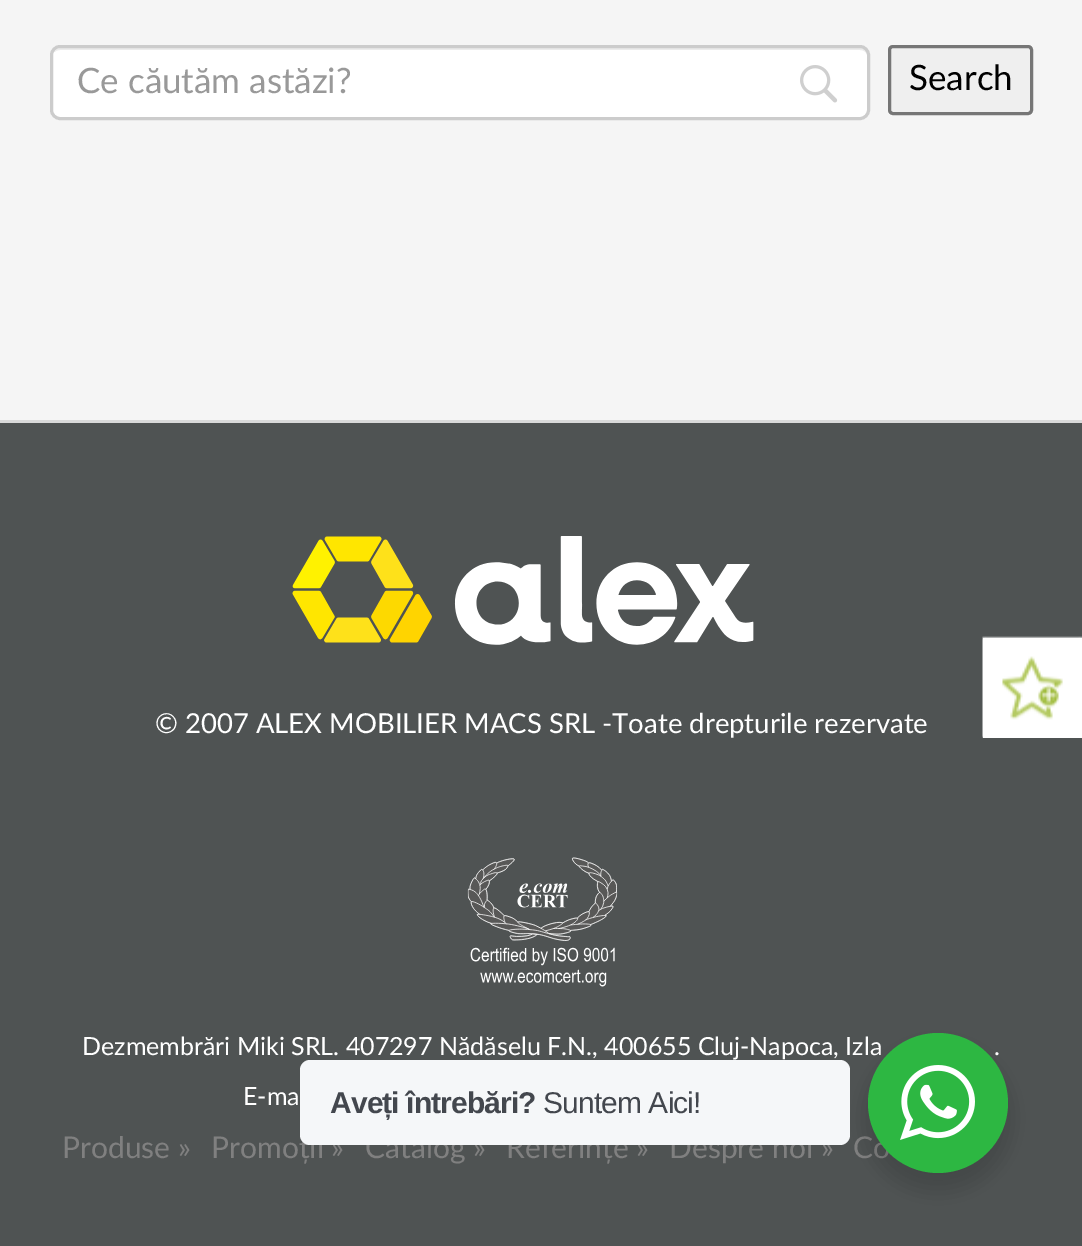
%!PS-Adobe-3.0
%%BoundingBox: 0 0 1082 1246
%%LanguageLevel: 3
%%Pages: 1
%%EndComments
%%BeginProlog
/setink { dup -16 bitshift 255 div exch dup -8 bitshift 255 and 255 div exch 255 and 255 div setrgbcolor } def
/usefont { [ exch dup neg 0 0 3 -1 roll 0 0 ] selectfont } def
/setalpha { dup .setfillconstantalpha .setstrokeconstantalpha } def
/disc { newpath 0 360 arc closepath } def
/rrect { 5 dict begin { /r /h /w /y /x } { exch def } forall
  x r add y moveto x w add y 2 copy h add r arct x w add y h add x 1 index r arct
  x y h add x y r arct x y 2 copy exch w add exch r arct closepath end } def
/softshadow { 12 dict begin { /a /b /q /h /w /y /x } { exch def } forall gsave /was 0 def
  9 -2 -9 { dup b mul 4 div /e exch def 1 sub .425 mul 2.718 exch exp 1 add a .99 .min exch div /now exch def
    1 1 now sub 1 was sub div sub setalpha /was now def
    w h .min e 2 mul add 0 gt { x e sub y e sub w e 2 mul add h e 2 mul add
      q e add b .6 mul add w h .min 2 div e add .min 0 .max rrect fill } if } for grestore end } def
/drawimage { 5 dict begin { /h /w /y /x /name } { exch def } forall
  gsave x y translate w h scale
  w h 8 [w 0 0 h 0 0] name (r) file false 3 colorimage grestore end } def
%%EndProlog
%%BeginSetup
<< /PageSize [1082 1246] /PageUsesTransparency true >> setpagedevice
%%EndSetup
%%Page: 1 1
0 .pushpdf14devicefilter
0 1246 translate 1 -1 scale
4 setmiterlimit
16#F5F5F5 setink
0 0 1082 1246 rectfill
16#FFFFFF setink
50 45 820 75 10 rrect fill
(img1.raw) 800 65 38 38 drawimage
16#ECECEC setink
60 50 moveto 860 50 lineto 864 50 868 53 868 58 curveto 868 56 lineto 868 52 864 48 860 48 curveto 61 48 lineto 58 48 55 50 53 53 curveto 55 51 58 50 60 50 curveto closepath fill
16#CCCCCC setink
3 setlinewidth
51.5 46.5 817 72 8.5 rrect stroke
/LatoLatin-Regular 35 usefont
16#999999 setink
77 93 moveto (Ce căutăm astăzi?) show
16#EFEFEF setink
889.5 46.5 142 67 3.5 rrect gsave fill grestore
16#767676 setink
stroke
16#000000 setink
909 90 moveto (Search) show
16#4F5353 setink
0 423 1082 823 rectfill
16#D9D9D9 setink
0 420 1082 3 rectfill
(img2.raw) 292 536 462 109 drawimage
/LatoLatin-Regular 27.5 usefont
16#FFFFFF setink
155 733 moveto (© 2007 ALEX MOBILIER MACS SRL -Toate drepturile rezervate) show
(img3.raw) 467 857 151 130 drawimage
/LatoLatin-Regular 25 usefont
[
    [(Dezmembrări Miki SRL. 407297 Nădăselu F.N., 400655 Cluj-Napoca, Izla) 82 1055]
    [(.) 994 1055]
    [(E-ma) 243 1105]
] { aload pop moveto show } forall
/LatoLatin-Regular 30 usefont
16#808080 setink
[
    [(Produse ») 62 1158]
    [(Promoții ») 211 1158]
    [(Catalog ») 365 1158]
    [(Referințe ») 506 1158]
    [(Despre noi ») 669 1158]
    [(Co) 853 1158]
] { aload pop moveto show } forall
16#FFFFFF setink
983 638 99 100 rectfill
(img4.raw) 982 636 100 102 drawimage
16#000000 setink
863 1043 150 150 75 10 0.14 softshadow
16#F5F7F9 setink
300 1060 550 85 10 rrect fill
/LiberationSans-Bold 30 usefont
16#43474E setink
330 1113 moveto -0.9 0 (Aveți întrebări?) ashow
/LiberationSans-Regular 30 usefont
543 1113 moveto -0.9 0 (Suntem Aici!) ashow
16#2DB742 setink
938 1103 70 disc fill
(img5.raw) 900 1065 75 75 drawimage
.poppdf14devicefilter showpage
%%EOF
